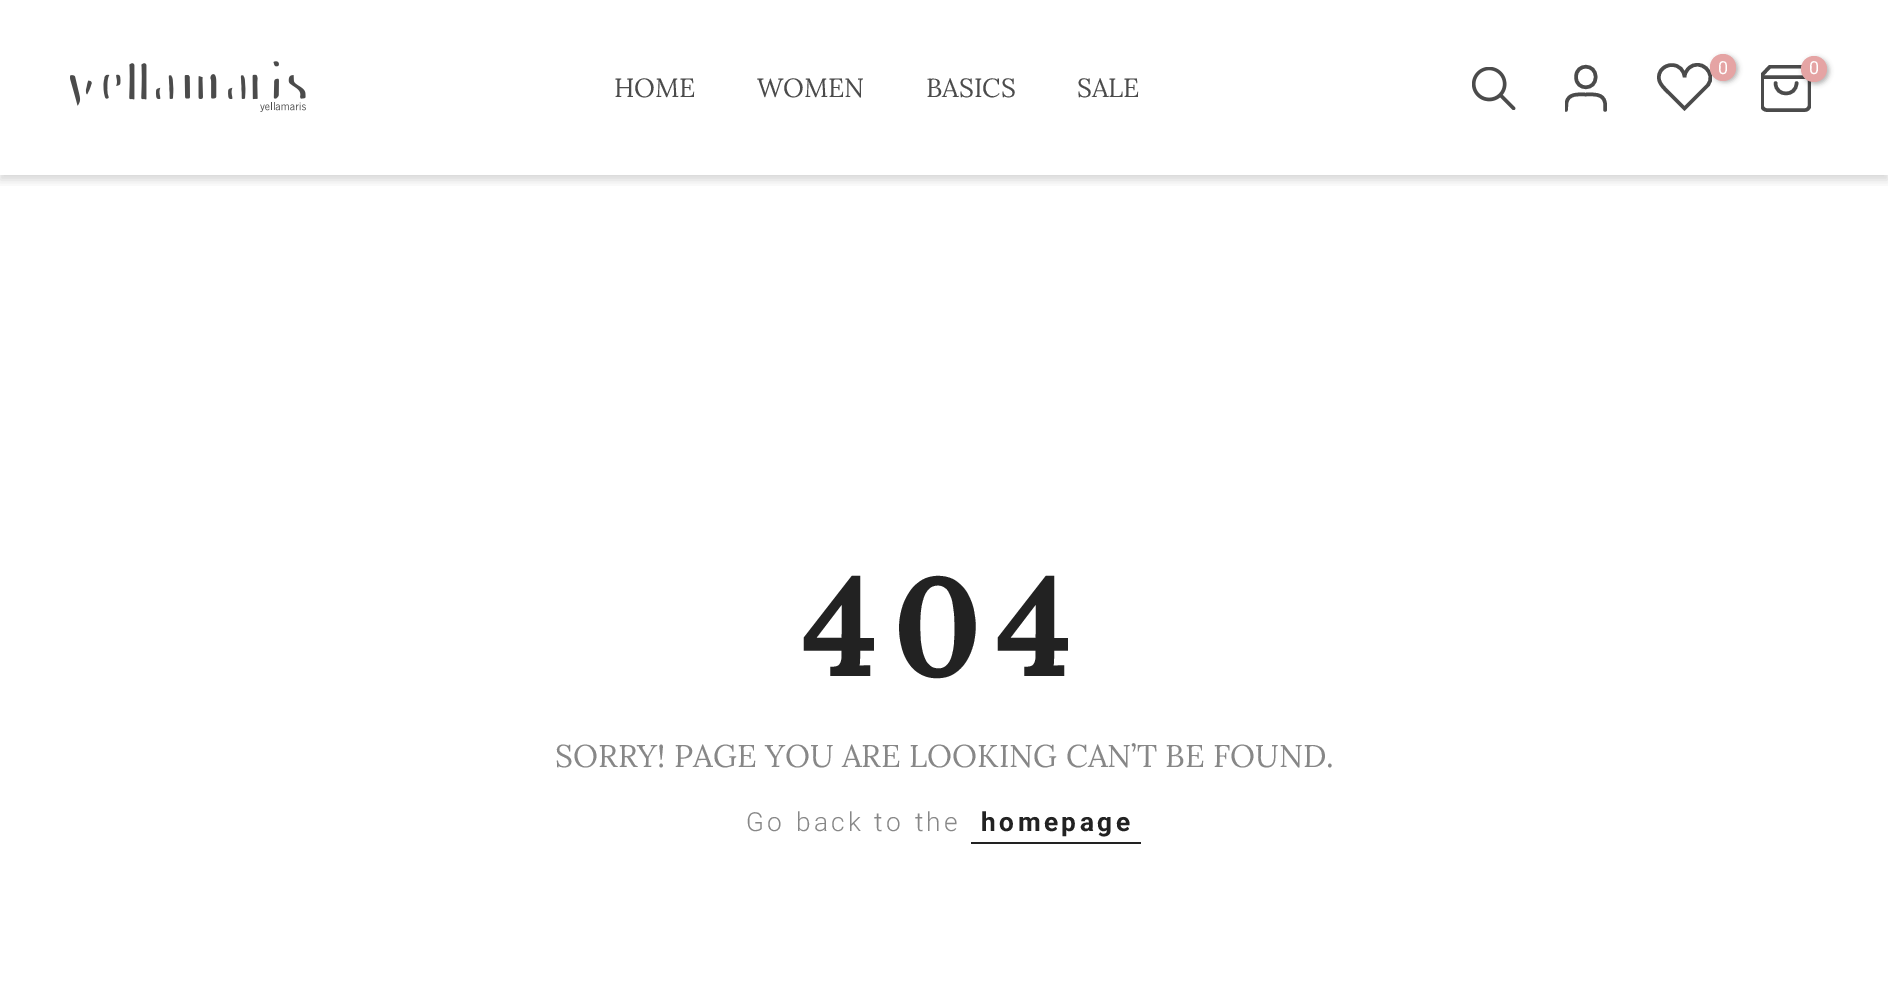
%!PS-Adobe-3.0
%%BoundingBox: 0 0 1888 1008
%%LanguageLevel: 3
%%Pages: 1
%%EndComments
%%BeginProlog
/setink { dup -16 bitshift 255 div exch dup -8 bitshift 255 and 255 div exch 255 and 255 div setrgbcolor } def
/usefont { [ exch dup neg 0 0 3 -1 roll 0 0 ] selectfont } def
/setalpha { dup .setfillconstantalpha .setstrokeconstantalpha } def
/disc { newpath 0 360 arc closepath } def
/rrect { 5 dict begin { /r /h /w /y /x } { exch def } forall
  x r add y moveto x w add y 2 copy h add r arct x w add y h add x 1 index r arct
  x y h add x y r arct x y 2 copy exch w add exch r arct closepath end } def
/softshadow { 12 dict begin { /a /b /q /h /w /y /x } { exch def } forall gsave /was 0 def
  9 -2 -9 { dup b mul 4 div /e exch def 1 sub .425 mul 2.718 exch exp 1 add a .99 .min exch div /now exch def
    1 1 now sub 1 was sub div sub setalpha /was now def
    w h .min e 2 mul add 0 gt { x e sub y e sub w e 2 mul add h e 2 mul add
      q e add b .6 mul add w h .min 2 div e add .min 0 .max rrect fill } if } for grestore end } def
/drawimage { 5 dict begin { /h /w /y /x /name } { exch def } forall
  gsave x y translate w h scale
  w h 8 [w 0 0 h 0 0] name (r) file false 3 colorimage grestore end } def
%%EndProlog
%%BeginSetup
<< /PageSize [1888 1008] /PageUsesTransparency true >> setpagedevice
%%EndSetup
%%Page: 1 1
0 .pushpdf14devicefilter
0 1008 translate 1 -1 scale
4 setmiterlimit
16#FFFFFF setink
0 0 1888 1008 rectfill
gsave
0 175 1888 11 rectclip
16#000000 setink
0 5 1888 175 0 5 0.16 softshadow
grestore
(img1.raw) 70 61 236 51 drawimage
(img2.raw) 1472 67 44 43 drawimage
gsave
1565 65 43 47 rectclip
16#4B4B4B setink
3.5 setlinewidth
1 setlinecap
1 setlinejoin
1605 110 moveto 1605 103 lineto 1603.5 93 1593 94.5 1585.5 94.5 curveto 1578.5 94.5 1568 93 1566.5 103 curveto 1566 110 lineto stroke
grestore
16#4B4B4B setink
3.5 setlinewidth
1 setlinecap
1 setlinejoin
1595.5 77 moveto 1596 90.5 1576 91 1576 77 curveto 1576 63 1596 63.5 1595.5 77 curveto closepath stroke
gsave
1657 63 55 49 rectclip
0 setlinecap
0 setlinejoin
1672 65 moveto 1667.5 65 1663.5 67 1661 70.5 curveto 1654.5 80.5 1663.5 87.5 1670 94 curveto 1684.5 108.5 lineto 1707.5 85.5 lineto 1717.5 73.5 1700 57 1688.5 68.5 curveto 1686 71 1684.5 74 1684.5 77.5 curveto 1684.5 70.5 1679 65 1672 65 curveto closepath stroke
grestore
16#000000 setink
1712 56 26 26 13 2.5 0.3 softshadow
16#E5A4A4 setink
1710 54 26 27 13 rrect fill
/Roboto-Regular 18 usefont
16#FFFFFF setink
1718 74 moveto (0) show
gsave
1761 65 50 47 rectclip
16#4B4B4B setink
1770 66.5 moveto 1762 75 lineto 1762 106 lineto 1762.5 108.5 1765 110.5 1767.5 110 curveto 1804 110 lineto 1807 110.5 1809 108.5 1809.5 106 curveto 1809.5 75 lineto 1801.5 66.5 lineto closepath 1762 77 moveto 1809.5 77 lineto stroke
grestore
16#4B4B4B setink
1796.5 83 moveto 1796.5 97 1775.5 97 1775.5 83 curveto stroke
16#000000 setink
1803 58 26 26 13 2.5 0.3 softshadow
16#E5A4A4 setink
1814 69 13 disc fill
16#FFFFFF setink
1809 74 moveto (0) show
/Lora-Regular 26.25 usefont
16#4B4B4B setink
[
    [(HOME) 614 97]
    [(WOMEN) 757 97]
    [(BASICS) 926 97]
    [(SALE) 1077 97]
] { aload pop moveto show } forall
/Lora-Bold 140 usefont
16#222222 setink
802 676 moveto 14 0 (404) ashow
/Lora-Regular 31.5 usefont
16#878787 setink
555 767 moveto (SORRY! PAGE YOU ARE LOOKING CAN’T BE FOUND.) show
/Roboto-Light 26.25 usefont
746 831 moveto 3.5 0 (Go back to the) ashow
/Roboto-Bold 26.25 usefont
16#222222 setink
981 831 moveto 3.5 0 (homepage) ashow
971 842 170 2 rectfill
.poppdf14devicefilter showpage
%%EOF
